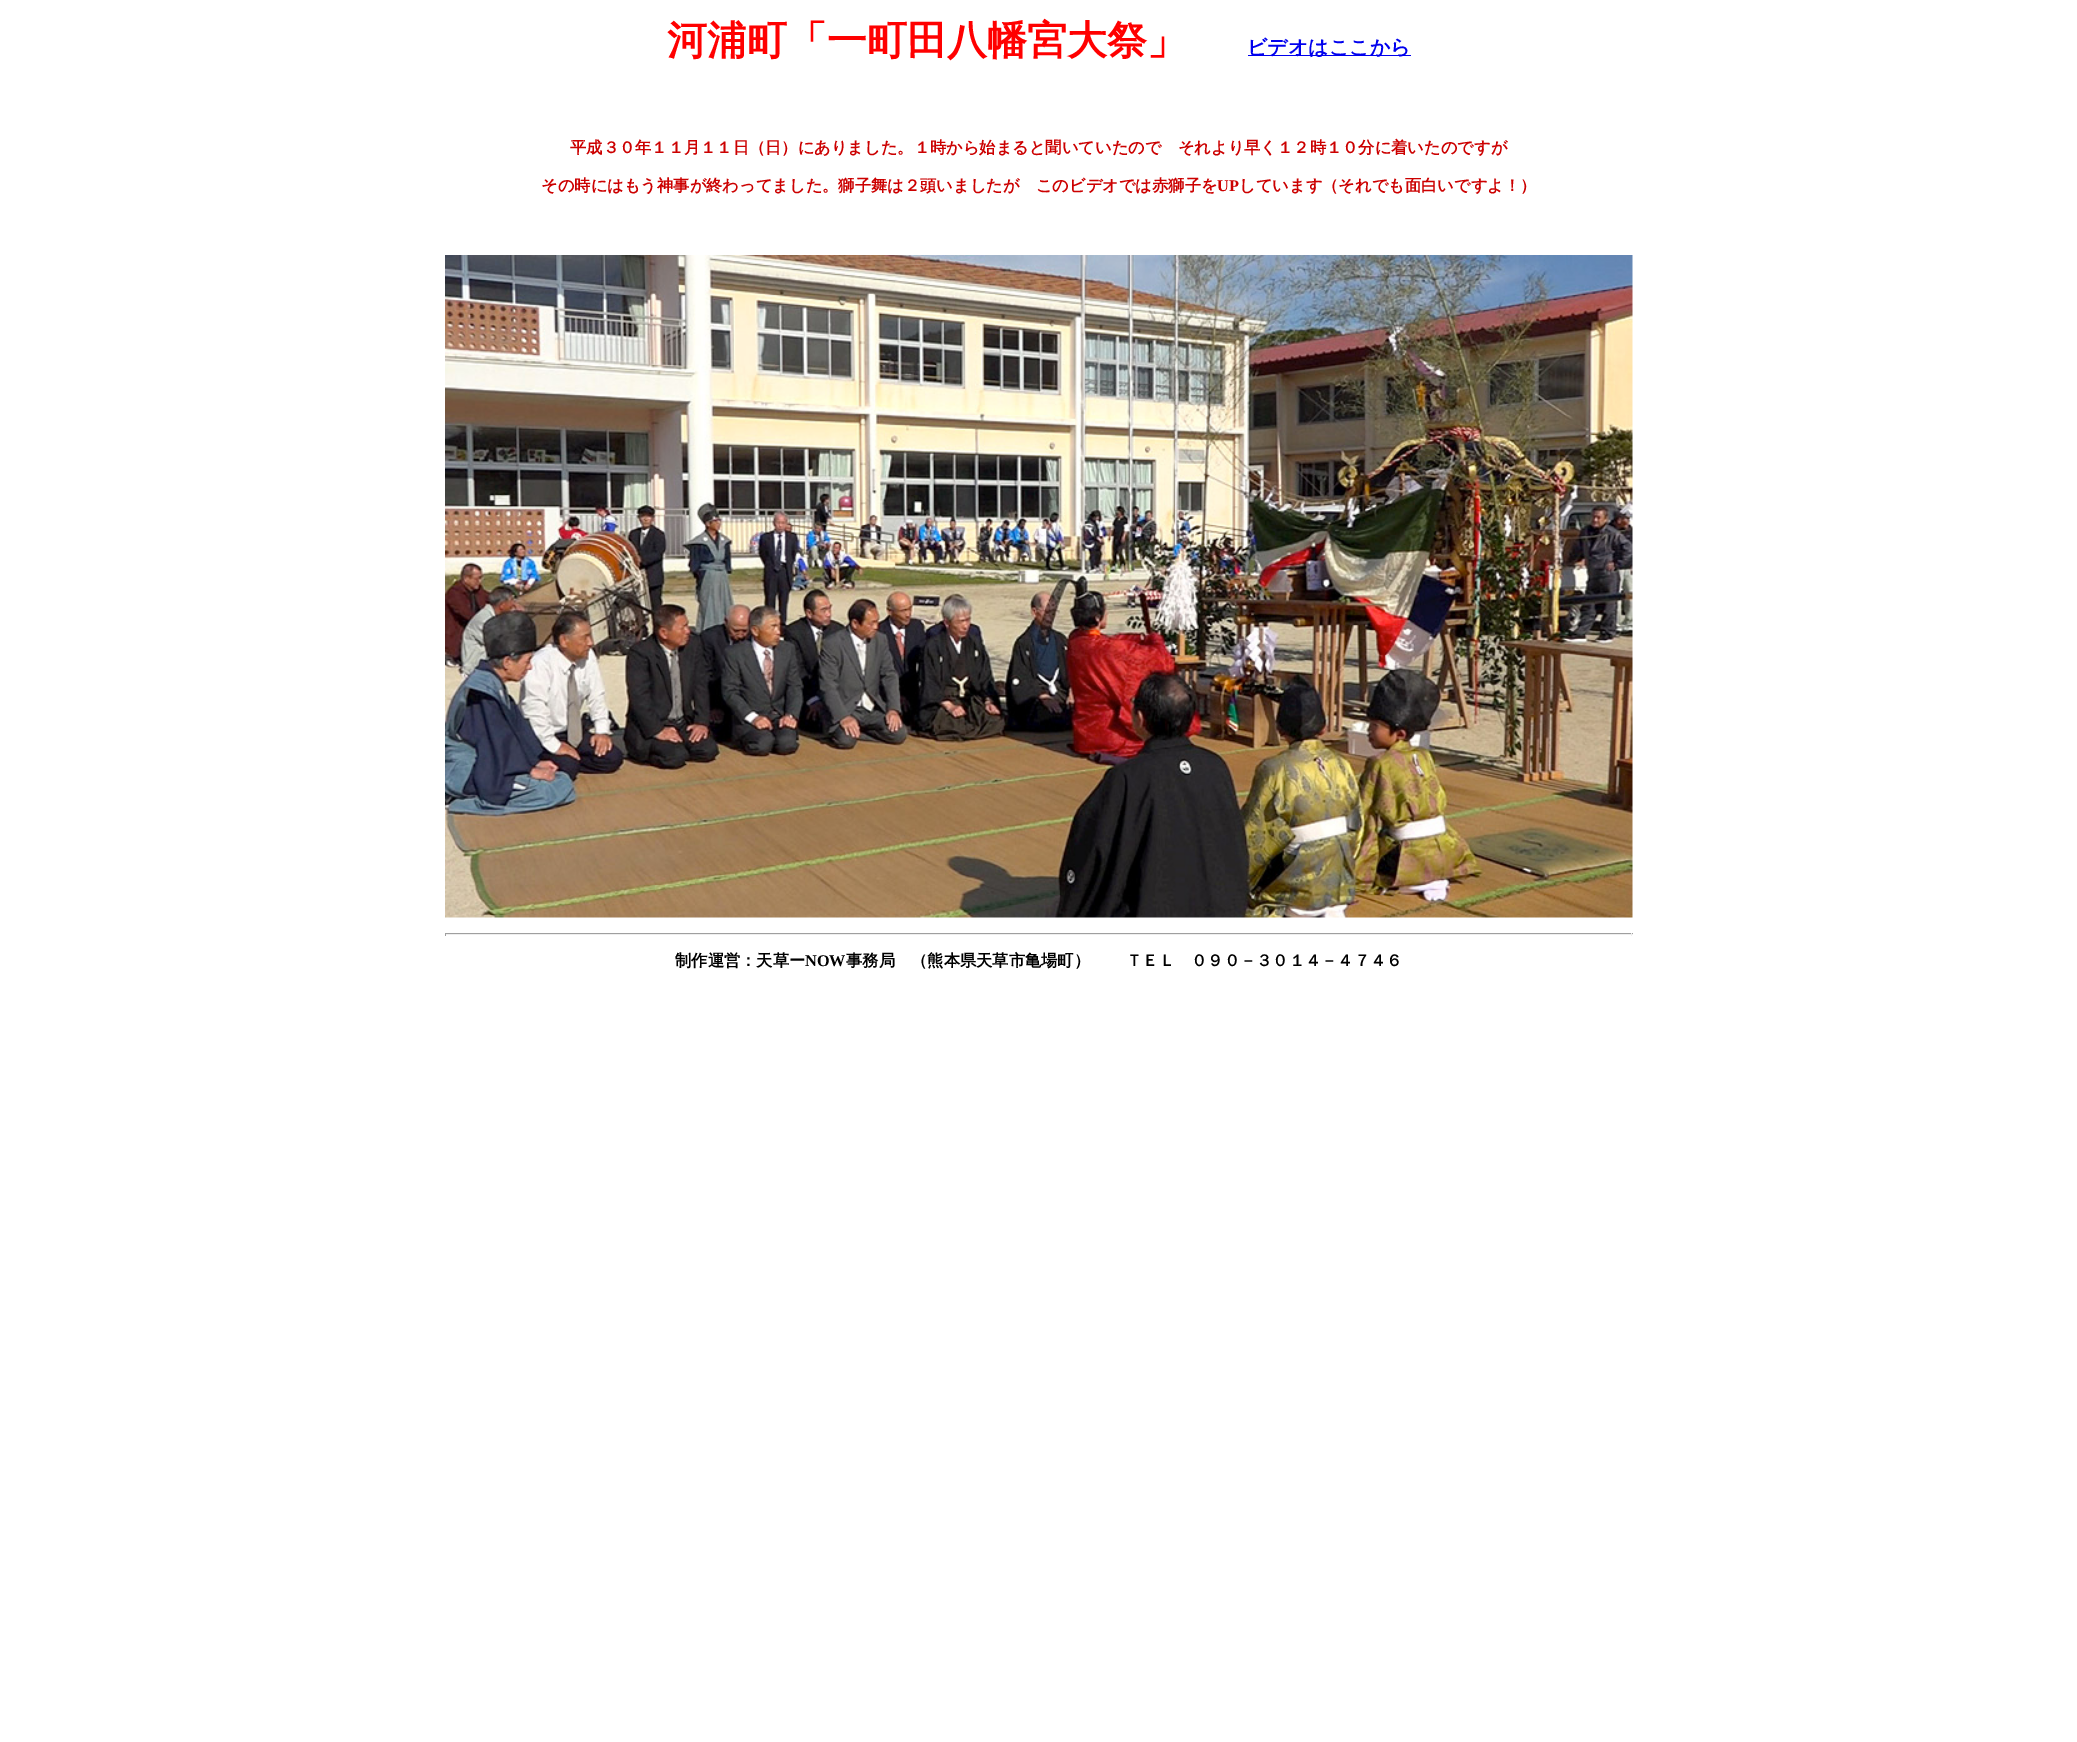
%!PS-Adobe-3.0
%%BoundingBox: 0 0 2077 1742
%%LanguageLevel: 3
%%Pages: 1
%%EndComments
%%BeginProlog
/setink { dup -16 bitshift 255 div exch dup -8 bitshift 255 and 255 div exch 255 and 255 div setrgbcolor } def
/usefont { [ exch dup neg 0 0 3 -1 roll 0 0 ] selectfont } def
/drawimage { 5 dict begin { /h /w /y /x /name } { exch def } forall
  gsave x y translate w h scale
  w h 8 [w 0 0 h 0 0] name (r) file false 3 colorimage grestore end } def
%%EndProlog
%%BeginSetup
<< /PageSize [2077 1742] >> setpagedevice
%%EndSetup
%%Page: 1 1
0 1742 translate 1 -1 scale
4 setmiterlimit
16#FFFFFF setink
0 0 2077 1742 rectfill
/WenQuanYiZenHei-Bold 40 usefont
16#FF0000 setink
667 54 moveto (河浦町「一町田八幡宮大祭」) show
16#0000EE setink
1248 55 163 1 rectfill
/WenQuanYiZenHei-Bold 20 usefont
1247 54 moveto (ビデオはここから) show
/WenQuanYiZenHei-Bold 16.25 usefont
16#CC0000 setink
570 153 moveto (平成３０年１１月１１日（日）にありました。１時から始まると聞いていたので　それより早く１２時１０分に着いたのですが) show
541 191 moveto (その時にはもう神事が終わってました。獅子舞は２頭いましたが　このビデオでは赤獅子を) show
/LiberationSerif-Bold 16.25 usefont
1217 191 moveto (UP) show
/WenQuanYiZenHei-Bold 16.25 usefont
1239 191 moveto (しています（それでも面白いですよ！）) show
(img1.raw) 445 255 1188 663 drawimage
[
    [445 933 1188 1 16#9F9F9F]
    [1631 933 1 3 16#EEEEEE]
    [445 934 1188 1 16#EEEEEE]
    [445 933 1 3 16#9F9F9F]
] { aload pop setink rectfill } forall
16#000000 setink
675 966 moveto (制作運営：天草ー) show
/LiberationSerif-Bold 16.25 usefont
805 966 moveto (NOW) show
/WenQuanYiZenHei-Bold 16.25 usefont
846 966 moveto (事務局　（熊本県天草市亀場町）) show
1126 966 moveto (ＴＥＬ　０９０－３０１４－４７４６) show
showpage
%%EOF
